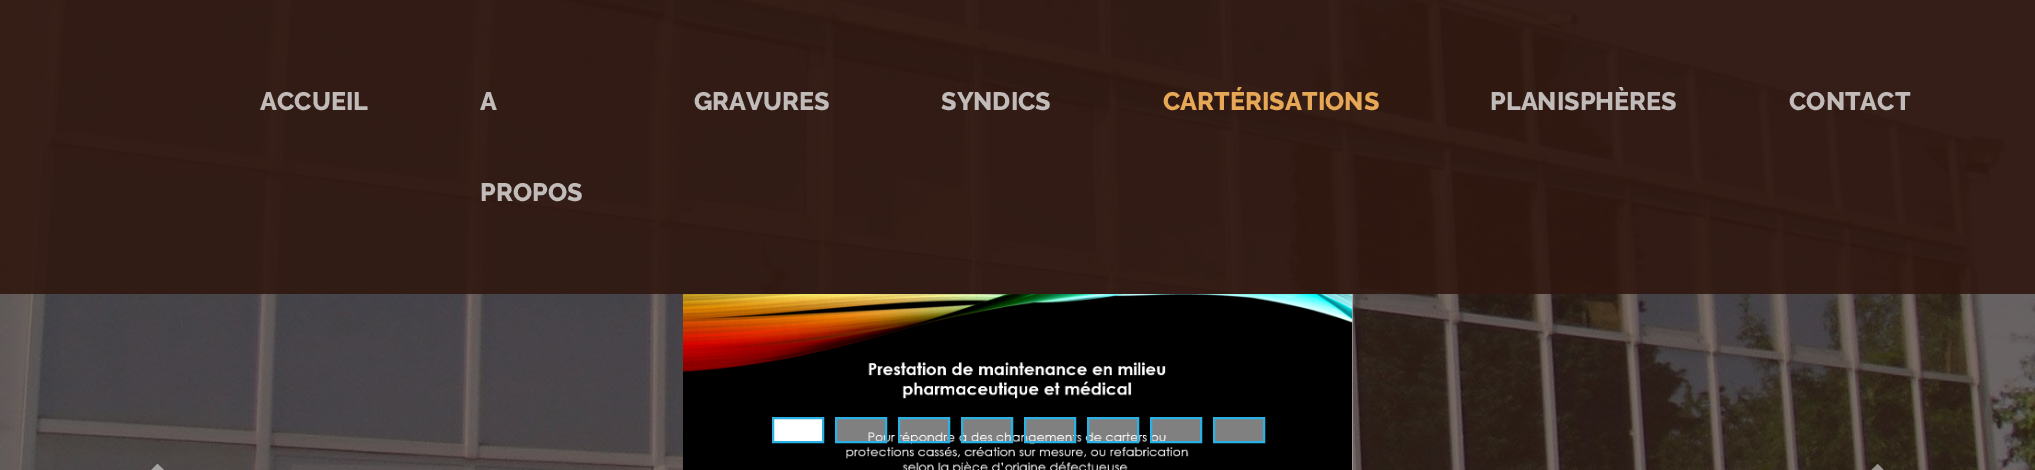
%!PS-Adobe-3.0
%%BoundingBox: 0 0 2035 470
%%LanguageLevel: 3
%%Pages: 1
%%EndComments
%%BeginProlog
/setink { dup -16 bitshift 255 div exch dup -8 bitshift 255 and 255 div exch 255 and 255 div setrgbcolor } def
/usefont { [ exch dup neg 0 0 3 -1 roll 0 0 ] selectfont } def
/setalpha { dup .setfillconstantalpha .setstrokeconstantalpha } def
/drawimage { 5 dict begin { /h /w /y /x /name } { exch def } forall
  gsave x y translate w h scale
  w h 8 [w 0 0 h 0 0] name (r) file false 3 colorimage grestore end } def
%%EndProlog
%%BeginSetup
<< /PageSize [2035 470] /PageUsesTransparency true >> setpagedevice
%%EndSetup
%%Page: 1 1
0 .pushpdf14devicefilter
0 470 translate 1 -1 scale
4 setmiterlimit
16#FFFFFF setink
0 0 2035 470 rectfill
(img1.raw) 0 0 2035 470 drawimage
0.9 setalpha
16#2F170F setink
0 0 2035 294 rectfill
/Raleway-ExtraBold 25.25 usefont
1 setalpha
16#C1BBB9 setink
[
    [(ACCUEIL) 260 110]
    [(A) 480 110]
    [(PROPOS) 480 201]
    [(GRAVURES) 694 110]
    [(SYNDICS) 941 110]
] { aload pop moveto show } forall
16#E6A756 setink
1163 110 moveto (CARTÉRISATIONS) show
16#C1BBB9 setink
1490 110 moveto (PLANISPHÈRES) show
1789 110 moveto (CONTACT) show
(img2.raw) 683 294 670 176 drawimage
16#FFFFFF setink
773 418 moveto 823 418 lineto 823 442 lineto 773 442 lineto closepath gsave fill grestore
16#2BB2E3 setink
2 setlinewidth
stroke
0.5 setalpha
16#FFFFFF setink
836 418 moveto 886 418 lineto 886 442 lineto 836 442 lineto closepath fill
1 setalpha
16#2BB2E3 setink
836 418 moveto 886 418 lineto 886 442 lineto 836 442 lineto closepath stroke
0.5 setalpha
16#FFFFFF setink
899 418 moveto 949 418 lineto 949 442 lineto 899 442 lineto closepath fill
1 setalpha
16#2BB2E3 setink
899 418 moveto 949 418 lineto 949 442 lineto 899 442 lineto closepath stroke
0.5 setalpha
16#FFFFFF setink
962 418 moveto 1012 418 lineto 1012 442 lineto 962 442 lineto closepath fill
1 setalpha
16#2BB2E3 setink
962 418 moveto 1012 418 lineto 1012 442 lineto 962 442 lineto closepath stroke
0.5 setalpha
16#FFFFFF setink
1025 418 moveto 1075 418 lineto 1075 442 lineto 1025 442 lineto closepath fill
1 setalpha
16#2BB2E3 setink
1025 418 moveto 1075 418 lineto 1075 442 lineto 1025 442 lineto closepath stroke
0.5 setalpha
16#FFFFFF setink
1088 418 moveto 1138 418 lineto 1138 442 lineto 1088 442 lineto closepath fill
1 setalpha
16#2BB2E3 setink
1088 418 moveto 1138 418 lineto 1138 442 lineto 1088 442 lineto closepath stroke
0.5 setalpha
16#FFFFFF setink
1151 418 moveto 1201 418 lineto 1201 442 lineto 1151 442 lineto closepath fill
1 setalpha
16#2BB2E3 setink
1151 418 moveto 1201 418 lineto 1201 442 lineto 1151 442 lineto closepath stroke
16#808080 setink
1214 418 moveto 1264 418 lineto 1264 442 lineto 1214 442 lineto closepath gsave fill grestore
16#2BB2E3 setink
stroke
0.5 setalpha
16#FFFFFF setink
157.5 464 moveto 140 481 lineto 157.5 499 lineto 164.5 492 lineto 153.5 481 lineto 164.5 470.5 lineto closepath fill
1877.5 464 moveto 1871 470.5 lineto 1882 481 lineto 1871 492 lineto 1877.5 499 lineto 1895 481 lineto closepath fill
.poppdf14devicefilter showpage
%%EOF
